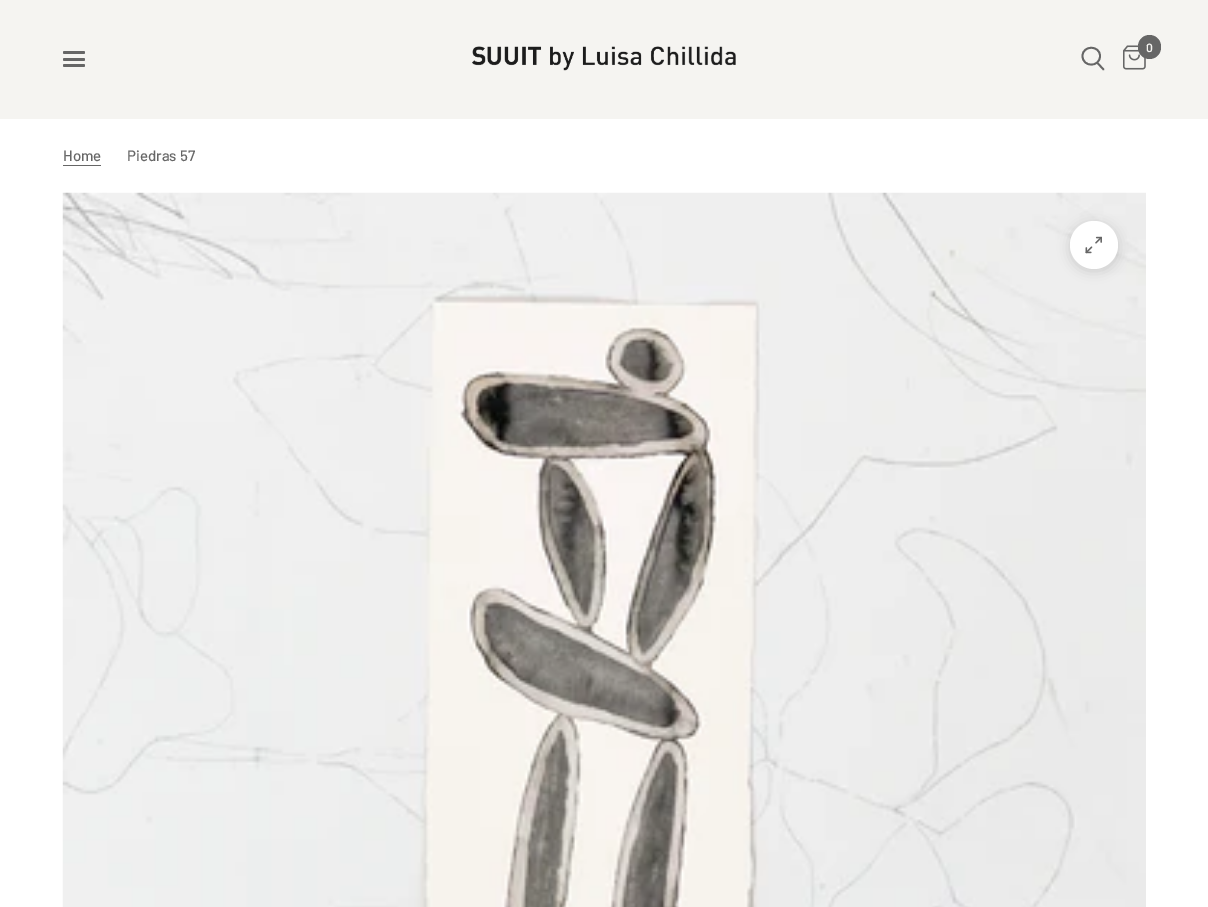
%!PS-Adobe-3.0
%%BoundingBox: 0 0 1208 907
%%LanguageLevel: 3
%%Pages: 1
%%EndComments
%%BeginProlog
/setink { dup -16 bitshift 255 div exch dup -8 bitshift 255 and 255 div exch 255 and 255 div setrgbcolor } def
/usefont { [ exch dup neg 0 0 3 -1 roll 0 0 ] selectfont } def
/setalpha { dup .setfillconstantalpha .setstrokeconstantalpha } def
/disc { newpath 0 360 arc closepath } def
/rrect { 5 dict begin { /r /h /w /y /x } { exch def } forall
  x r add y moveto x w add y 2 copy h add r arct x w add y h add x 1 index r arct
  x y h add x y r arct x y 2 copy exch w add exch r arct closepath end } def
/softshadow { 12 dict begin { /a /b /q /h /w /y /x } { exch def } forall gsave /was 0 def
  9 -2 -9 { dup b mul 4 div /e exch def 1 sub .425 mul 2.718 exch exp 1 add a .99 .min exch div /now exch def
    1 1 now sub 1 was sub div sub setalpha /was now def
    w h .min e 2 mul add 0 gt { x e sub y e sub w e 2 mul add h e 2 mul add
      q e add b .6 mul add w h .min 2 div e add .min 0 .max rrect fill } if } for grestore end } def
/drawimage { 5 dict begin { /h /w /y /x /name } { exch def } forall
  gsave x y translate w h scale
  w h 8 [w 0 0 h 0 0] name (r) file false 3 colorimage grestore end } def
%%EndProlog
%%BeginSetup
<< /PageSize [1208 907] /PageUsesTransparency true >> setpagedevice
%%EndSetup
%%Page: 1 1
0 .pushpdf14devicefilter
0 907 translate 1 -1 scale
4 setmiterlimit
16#FFFFFF setink
0 0 1208 907 rectfill
16#F5F4F1 setink
0 0 1208 119 rectfill
16#666666 setink
63 51 22 3 1.5 rrect fill
63 58 22 3 1.5 rrect fill
63 64 22 3 1.5 rrect fill
(img1.raw) 472 46 264 25 drawimage
1.8 setlinewidth
1 setlinecap
1 setlinejoin
1097.5 63 moveto 1103.5 69.5 lineto 1100 56 moveto 1100 67.5 1082.5 67.5 1082.5 56 curveto 1082.5 45 1100 45 1100 56 curveto closepath stroke
(img2.raw) 1123 45 23 25 drawimage
1138 35 23 24 11.5 rrect fill
/Barlow-SemiBold 12 usefont
16#F5F4F1 setink
1146 52 moveto (0) show
/Barlow-Medium 15 usefont
16#666666 setink
63 161 moveto (Home) show
63 165 38 1 rectfill
127 161 moveto (Piedras 57) show
(img3.raw) 62 192 1084 715 drawimage
16#000000 setink
1070 224 48 47 23.5 6 0.15 softshadow
16#FFFFFF setink
1094 245 24 disc fill
(img4.raw) 1085 236 17 18 drawimage
.poppdf14devicefilter showpage
%%EOF
